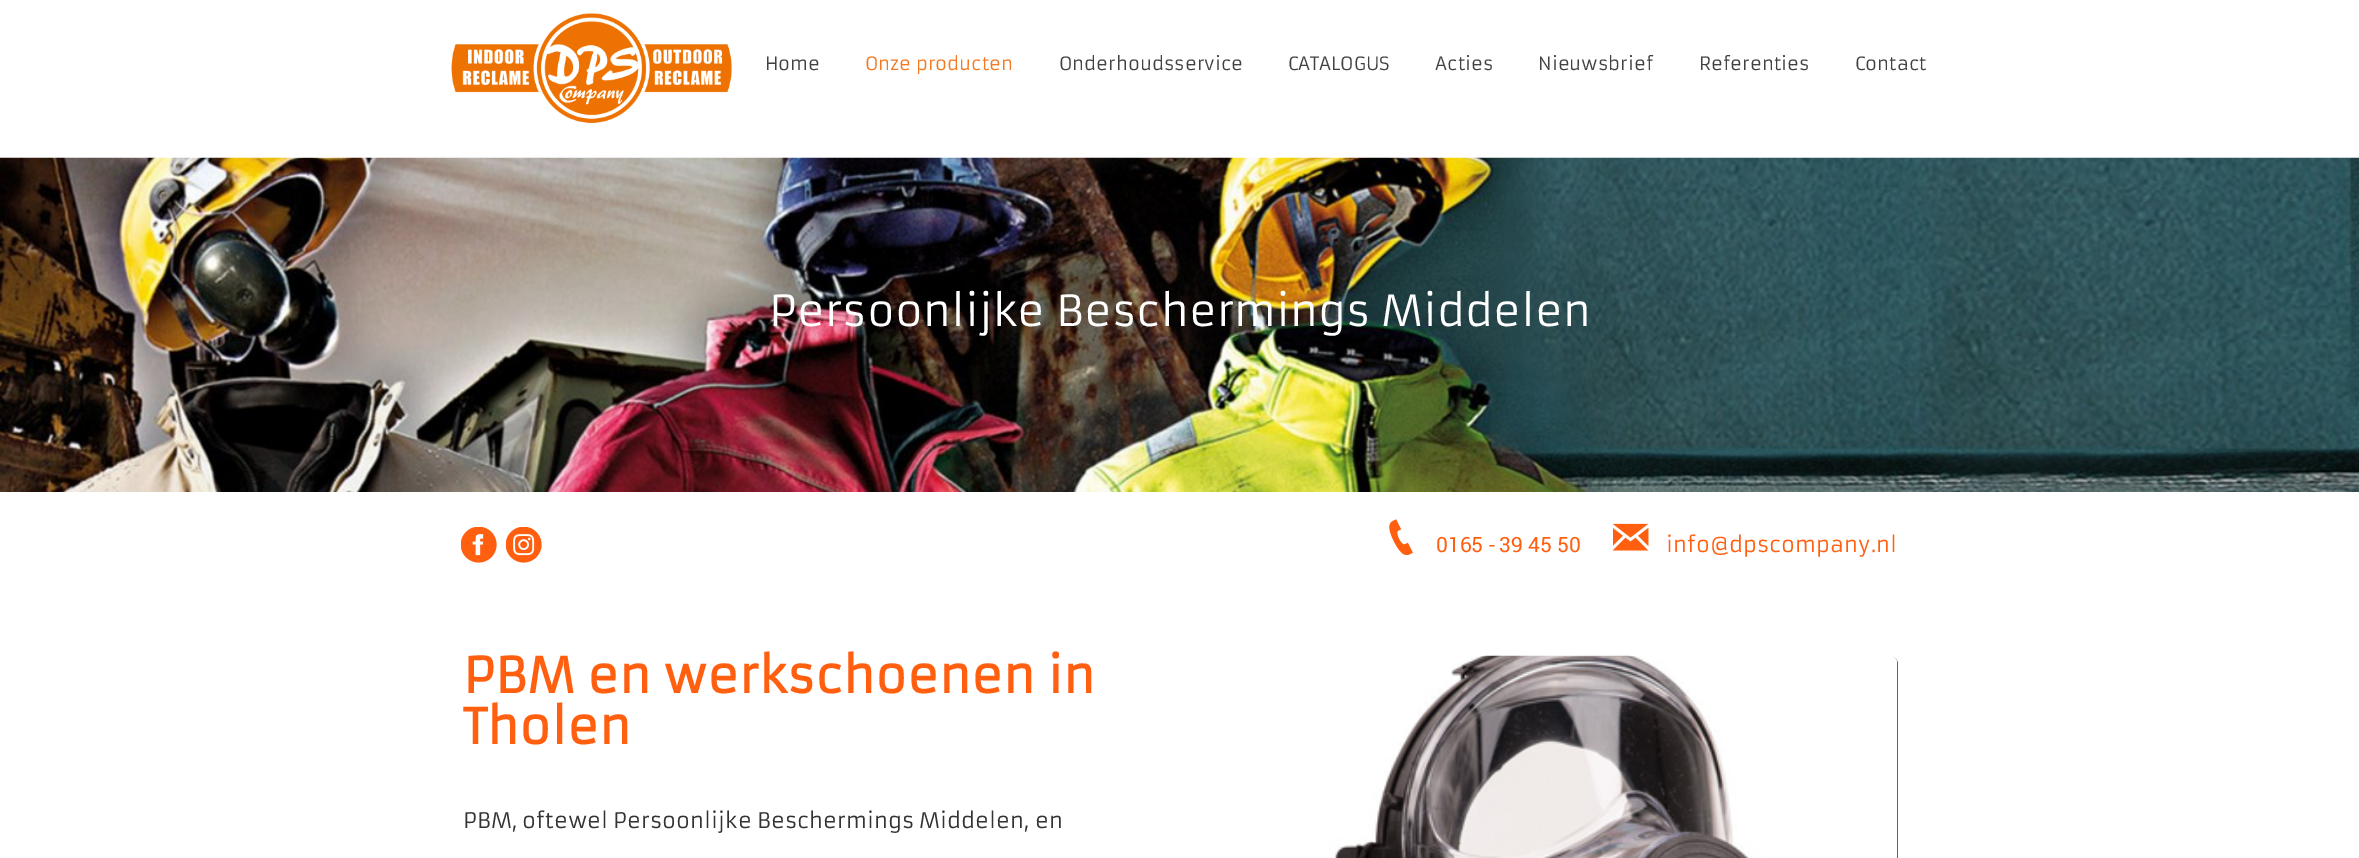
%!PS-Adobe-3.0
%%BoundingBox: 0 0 2359 858
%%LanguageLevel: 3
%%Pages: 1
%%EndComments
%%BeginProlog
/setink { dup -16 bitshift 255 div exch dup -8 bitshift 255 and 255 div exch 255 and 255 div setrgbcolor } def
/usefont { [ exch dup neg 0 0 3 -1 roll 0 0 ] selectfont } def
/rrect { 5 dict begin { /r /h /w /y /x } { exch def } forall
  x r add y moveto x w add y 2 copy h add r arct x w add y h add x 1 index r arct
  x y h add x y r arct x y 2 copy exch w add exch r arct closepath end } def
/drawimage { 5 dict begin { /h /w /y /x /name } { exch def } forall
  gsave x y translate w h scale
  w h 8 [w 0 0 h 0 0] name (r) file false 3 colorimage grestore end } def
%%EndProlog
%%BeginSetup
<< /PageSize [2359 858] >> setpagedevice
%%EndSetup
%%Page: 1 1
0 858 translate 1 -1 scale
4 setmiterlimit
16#FFFFFF setink
0 0 2359 858 rectfill
(img1.raw) 451 13 281 111 drawimage
/Armata-Regular 18 usefont
16#414142 setink
765 70 moveto (Home) show
16#F47920 setink
865 70 moveto (Onze producten) show
16#414142 setink
[
    [(Onderhoudsservice) 1059 70]
    [(CATALOGUS) 1288 70]
    [(Acties) 1435 70]
    [(Nieuwsbrief) 1538 70]
    [(Referenties) 1699 70]
    [(Contact) 1855 70]
] { aload pop moveto show } forall
(img2.raw) 0 157 2359 335 drawimage
/Armata-Regular 42 usefont
16#FFFFFF setink
769 326 moveto (Persoonlijke Beschermings Middelen) show
(img3.raw) 461 527 36 36 drawimage
(img4.raw) 506 527 36 36 drawimage
(img5.raw) 1389 519 24 36 drawimage
/Roboto-Regular 21 usefont
16#FF5F0F setink
1436 552 moveto (0165 - 39 45 50) show
(img6.raw) 1613 523 36 28 drawimage
/Armata-Regular 21 usefont
1666 552 moveto (info@dpscompany.nl) show
/Armata-Bold 48 usefont
463 693 moveto (PBM en werkschoenen in) show
463 744 moveto (Tholen) show
/Armata-Regular 21 usefont
16#333333 setink
463 828 moveto (PBM, oftewel Persoonlijke Beschermings Middelen, en) show
1211 656 687 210 8 rrect fill
(img7.raw) 1211 655 687 203 drawimage
showpage
%%EOF
